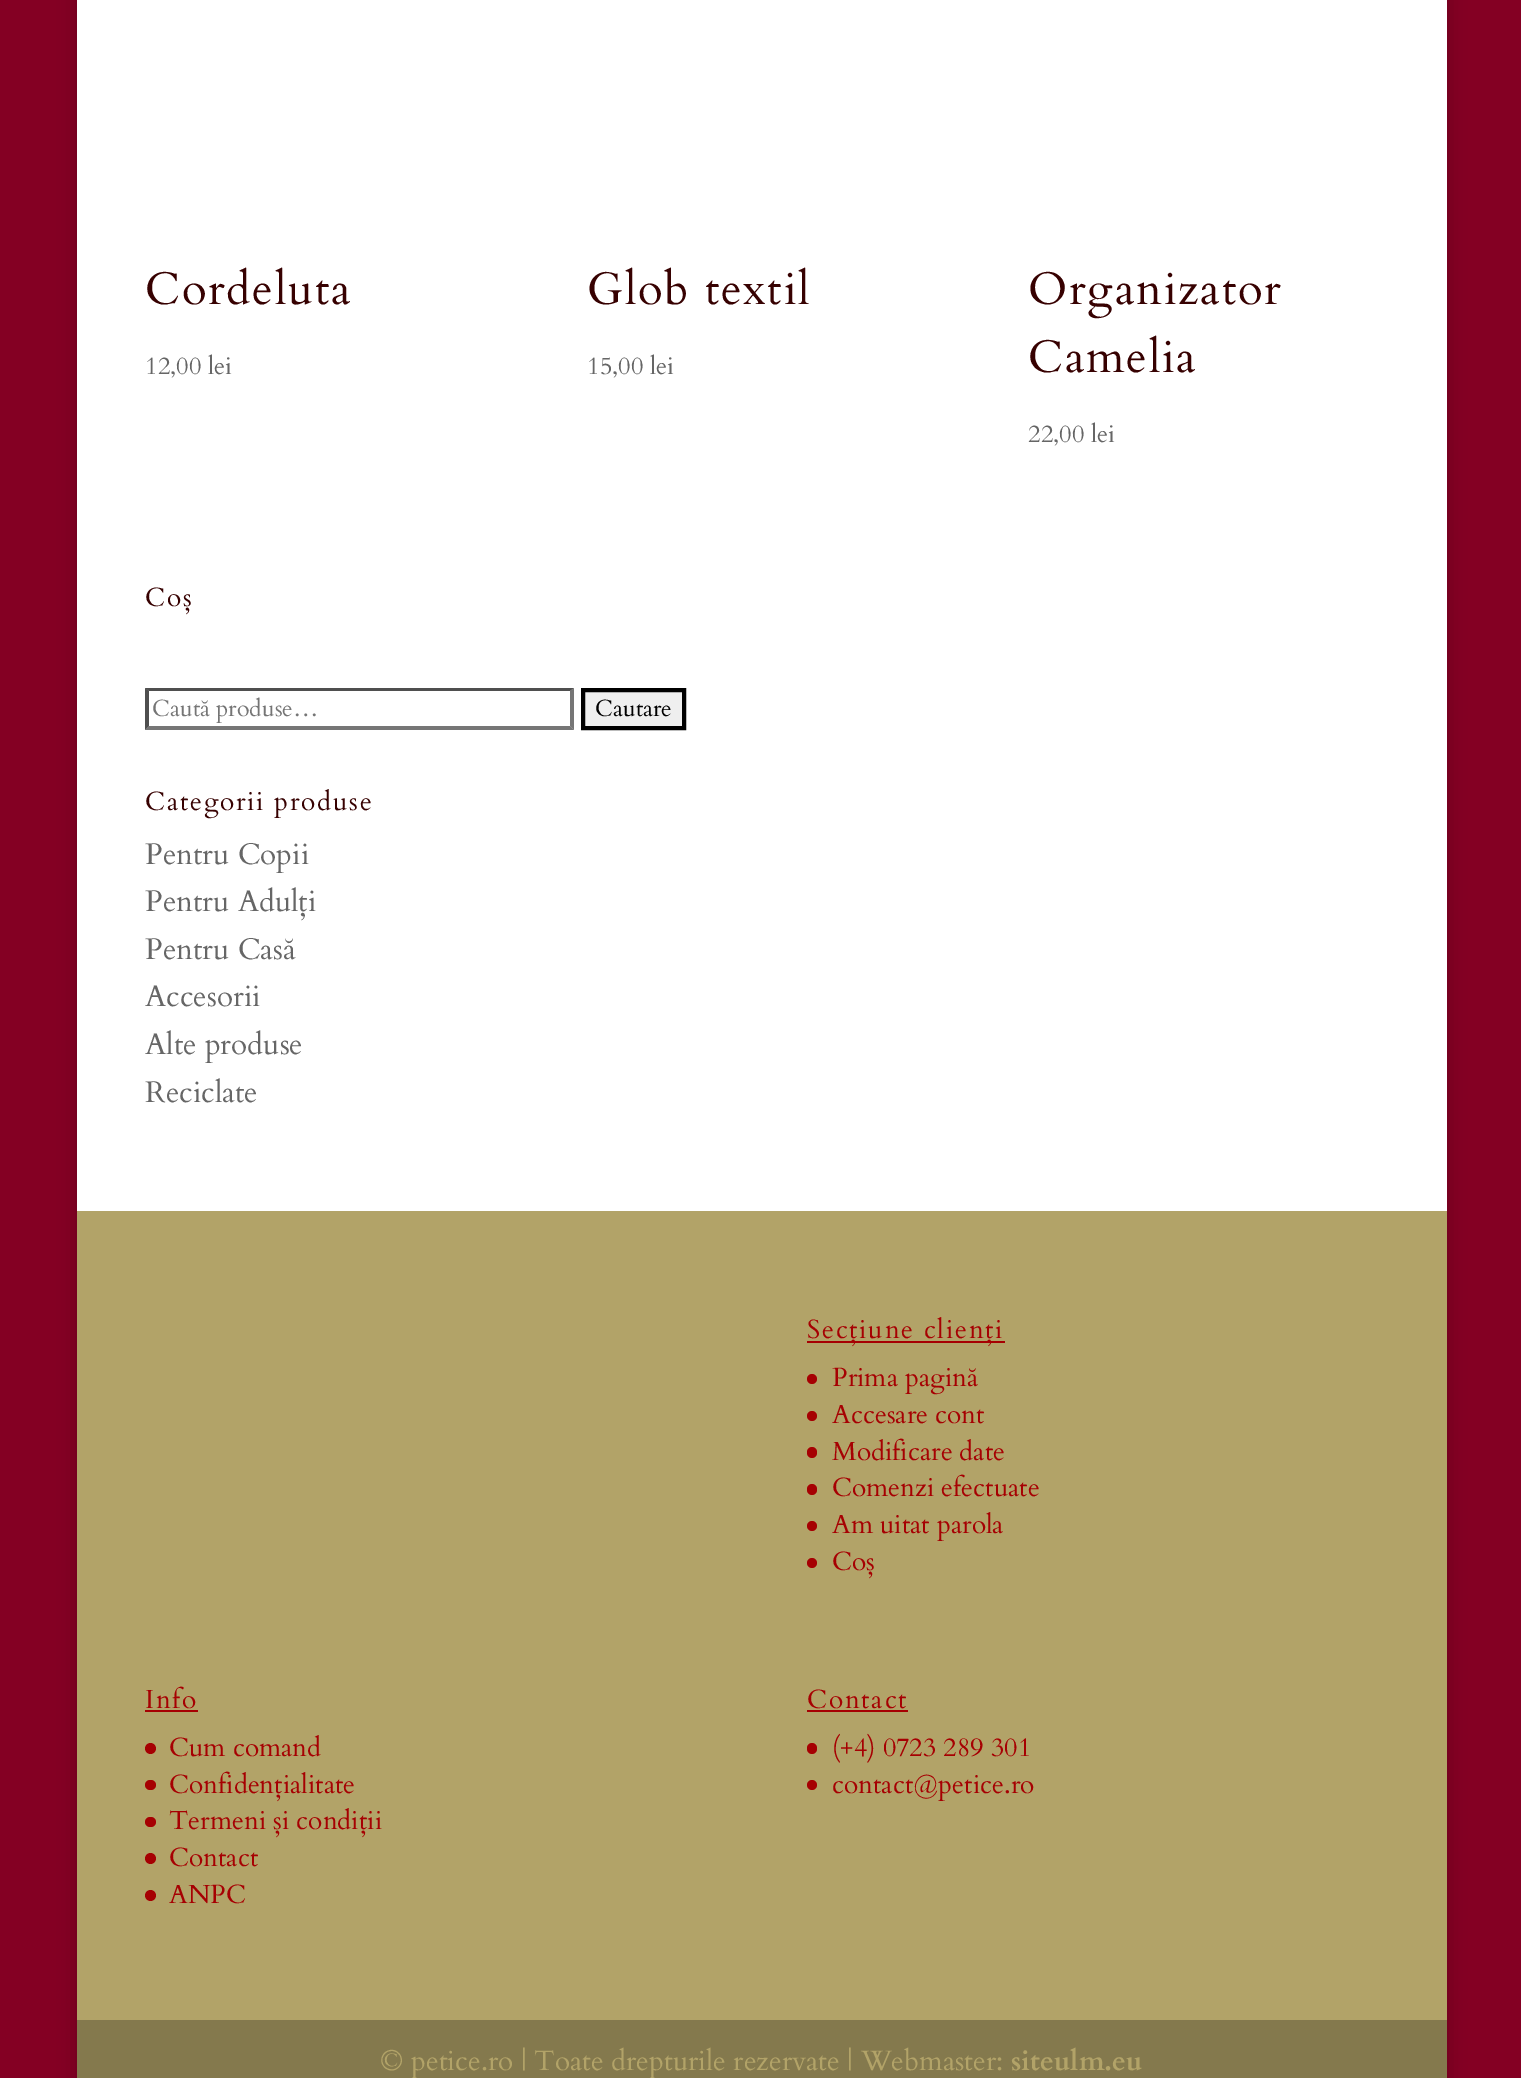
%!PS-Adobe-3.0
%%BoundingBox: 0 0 1521 2078
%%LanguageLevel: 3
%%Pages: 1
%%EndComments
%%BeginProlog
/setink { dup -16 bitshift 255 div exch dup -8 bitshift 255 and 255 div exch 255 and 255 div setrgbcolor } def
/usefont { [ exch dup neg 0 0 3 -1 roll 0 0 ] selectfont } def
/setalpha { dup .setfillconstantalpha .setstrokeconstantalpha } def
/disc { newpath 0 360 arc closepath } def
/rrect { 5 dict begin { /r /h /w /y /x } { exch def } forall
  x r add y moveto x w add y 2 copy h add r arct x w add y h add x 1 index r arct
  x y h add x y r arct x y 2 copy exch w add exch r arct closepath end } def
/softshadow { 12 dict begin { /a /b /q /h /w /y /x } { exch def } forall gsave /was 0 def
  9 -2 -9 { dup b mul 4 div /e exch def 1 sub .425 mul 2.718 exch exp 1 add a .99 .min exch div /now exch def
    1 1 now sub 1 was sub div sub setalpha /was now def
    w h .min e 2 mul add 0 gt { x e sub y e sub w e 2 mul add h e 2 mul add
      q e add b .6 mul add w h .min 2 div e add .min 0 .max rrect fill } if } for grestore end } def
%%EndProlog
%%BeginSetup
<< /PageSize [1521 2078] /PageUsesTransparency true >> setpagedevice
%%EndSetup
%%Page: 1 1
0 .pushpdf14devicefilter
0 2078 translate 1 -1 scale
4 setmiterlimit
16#840023 setink
0 0 1521 2078 rectfill
16#000000 setink
77 -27 1370 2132 0 9 0.2 softshadow
16#FFFFFF setink
77 0 1370 1211 rectfill
/Cardo-Regular 45.5 usefont
16#370101 setink
145 304 moveto 1.75 0 (Cordeluta) ashow
/Cardo-Regular 24.5 usefont
16#666666 setink
145 374 moveto (12,00 lei) show
/Cardo-Regular 45.5 usefont
16#370101 setink
587 304 moveto 1.75 0 (Glob textil) ashow
/Cardo-Regular 24.5 usefont
16#666666 setink
587 374 moveto (15,00 lei) show
/Cardo-Regular 45.5 usefont
16#370101 setink
1028 304 moveto 1.75 0 (Organizator) ashow
1028 372 moveto 1.75 0 (Camelia) ashow
/Cardo-Regular 24.5 usefont
16#666666 setink
1028 442 moveto (22,00 lei) show
/Cardo-Regular 26.25 usefont
16#370101 setink
145 606 moveto 1.75 0 (Coș) ashow
16#4F4F4F setink
145 688 moveto 574 688 lineto 570 691 lineto 149 691 lineto closepath fill
16#767676 setink
574 688 moveto 574 730 lineto 570 726 lineto 570 691 lineto closepath fill
574 730 moveto 145 730 lineto 149 726 lineto 570 726 lineto closepath fill
16#4F4F4F setink
145 730 moveto 145 688 lineto 149 691 lineto 149 726 lineto closepath fill
/Cardo-Regular 23.25 usefont
16#757575 setink
152 716 moveto (Caută produse…) show
16#EFEFEF setink
583 690 moveto 684 690 lineto 684 728 lineto 583 728 lineto closepath gsave fill grestore
16#000000 setink
4 setlinewidth
stroke
595 716 moveto (Cautare) show
/Cardo-Regular 26.25 usefont
16#370101 setink
145 810 moveto 1.75 0 (Categorii produse) ashow
/Cardo-Regular 29.75 usefont
16#666666 setink
[
    [(Pentru Copii) 145 864]
    [(Pentru Adulți) 145 911]
    [(Pentru Casă) 145 959]
    [(Accesorii) 145 1006]
    [(Alte produse) 145 1054]
    [(Reciclate) 145 1102]
] { aload pop moveto show } forall
16#B2A368 setink
77 1211 1370 809 rectfill
16#A60002 setink
807 1341 198 2 rectfill
/Cardo-Regular 26.25 usefont
807 1338 moveto 1.75 0 (Secțiune clienți) ashow
812 1379 5 disc fill
832 1386 moveto (Prima pagină) show
812 1416 5 disc fill
832 1423 moveto (Accesare cont) show
807 1447 10 11 5 rrect fill
832 1460 moveto (Modificare date) show
807 1484 10 11 5 rrect fill
832 1496 moveto (Comenzi efectuate) show
812 1526 5 disc fill
832 1533 moveto (Am uitat parola) show
812 1563 5 disc fill
832 1570 moveto (Coș) show
145 1708 moveto 1.75 0 (Info) ashow
145 1710 53 2 rectfill
150.5 1748.5 5.5 disc fill
169 1756 moveto (Cum comand) show
145 1780 11 10 5 rrect fill
169 1793 moveto (Confidențialitate) show
145 1817 11 10 5 rrect fill
169 1829 moveto (Termeni și condiții) show
150.5 1858.5 5.5 disc fill
169 1866 moveto (Contact) show
150.5 1895.5 5.5 disc fill
169 1903 moveto (ANPC) show
807 1708 moveto 1.75 0 (Contact) ashow
807 1710 101 2 rectfill
807 1743 10 11 5 rrect fill
832 1756 moveto (\(+4\) 0723 289 301) show
812 1785 5 disc fill
832 1793 moveto (contact@petice.ro) show
16#84794D setink
77 2020 1370 58 rectfill
/Cardo-Regular 28 usefont
16#B2A368 setink
380 2070 moveto (© petice.ro | Toate drepturile rezervate | Webmaster:) show
/Cardo-Bold 28 usefont
1011 2070 moveto (siteulm.eu) show
.poppdf14devicefilter showpage
%%EOF
